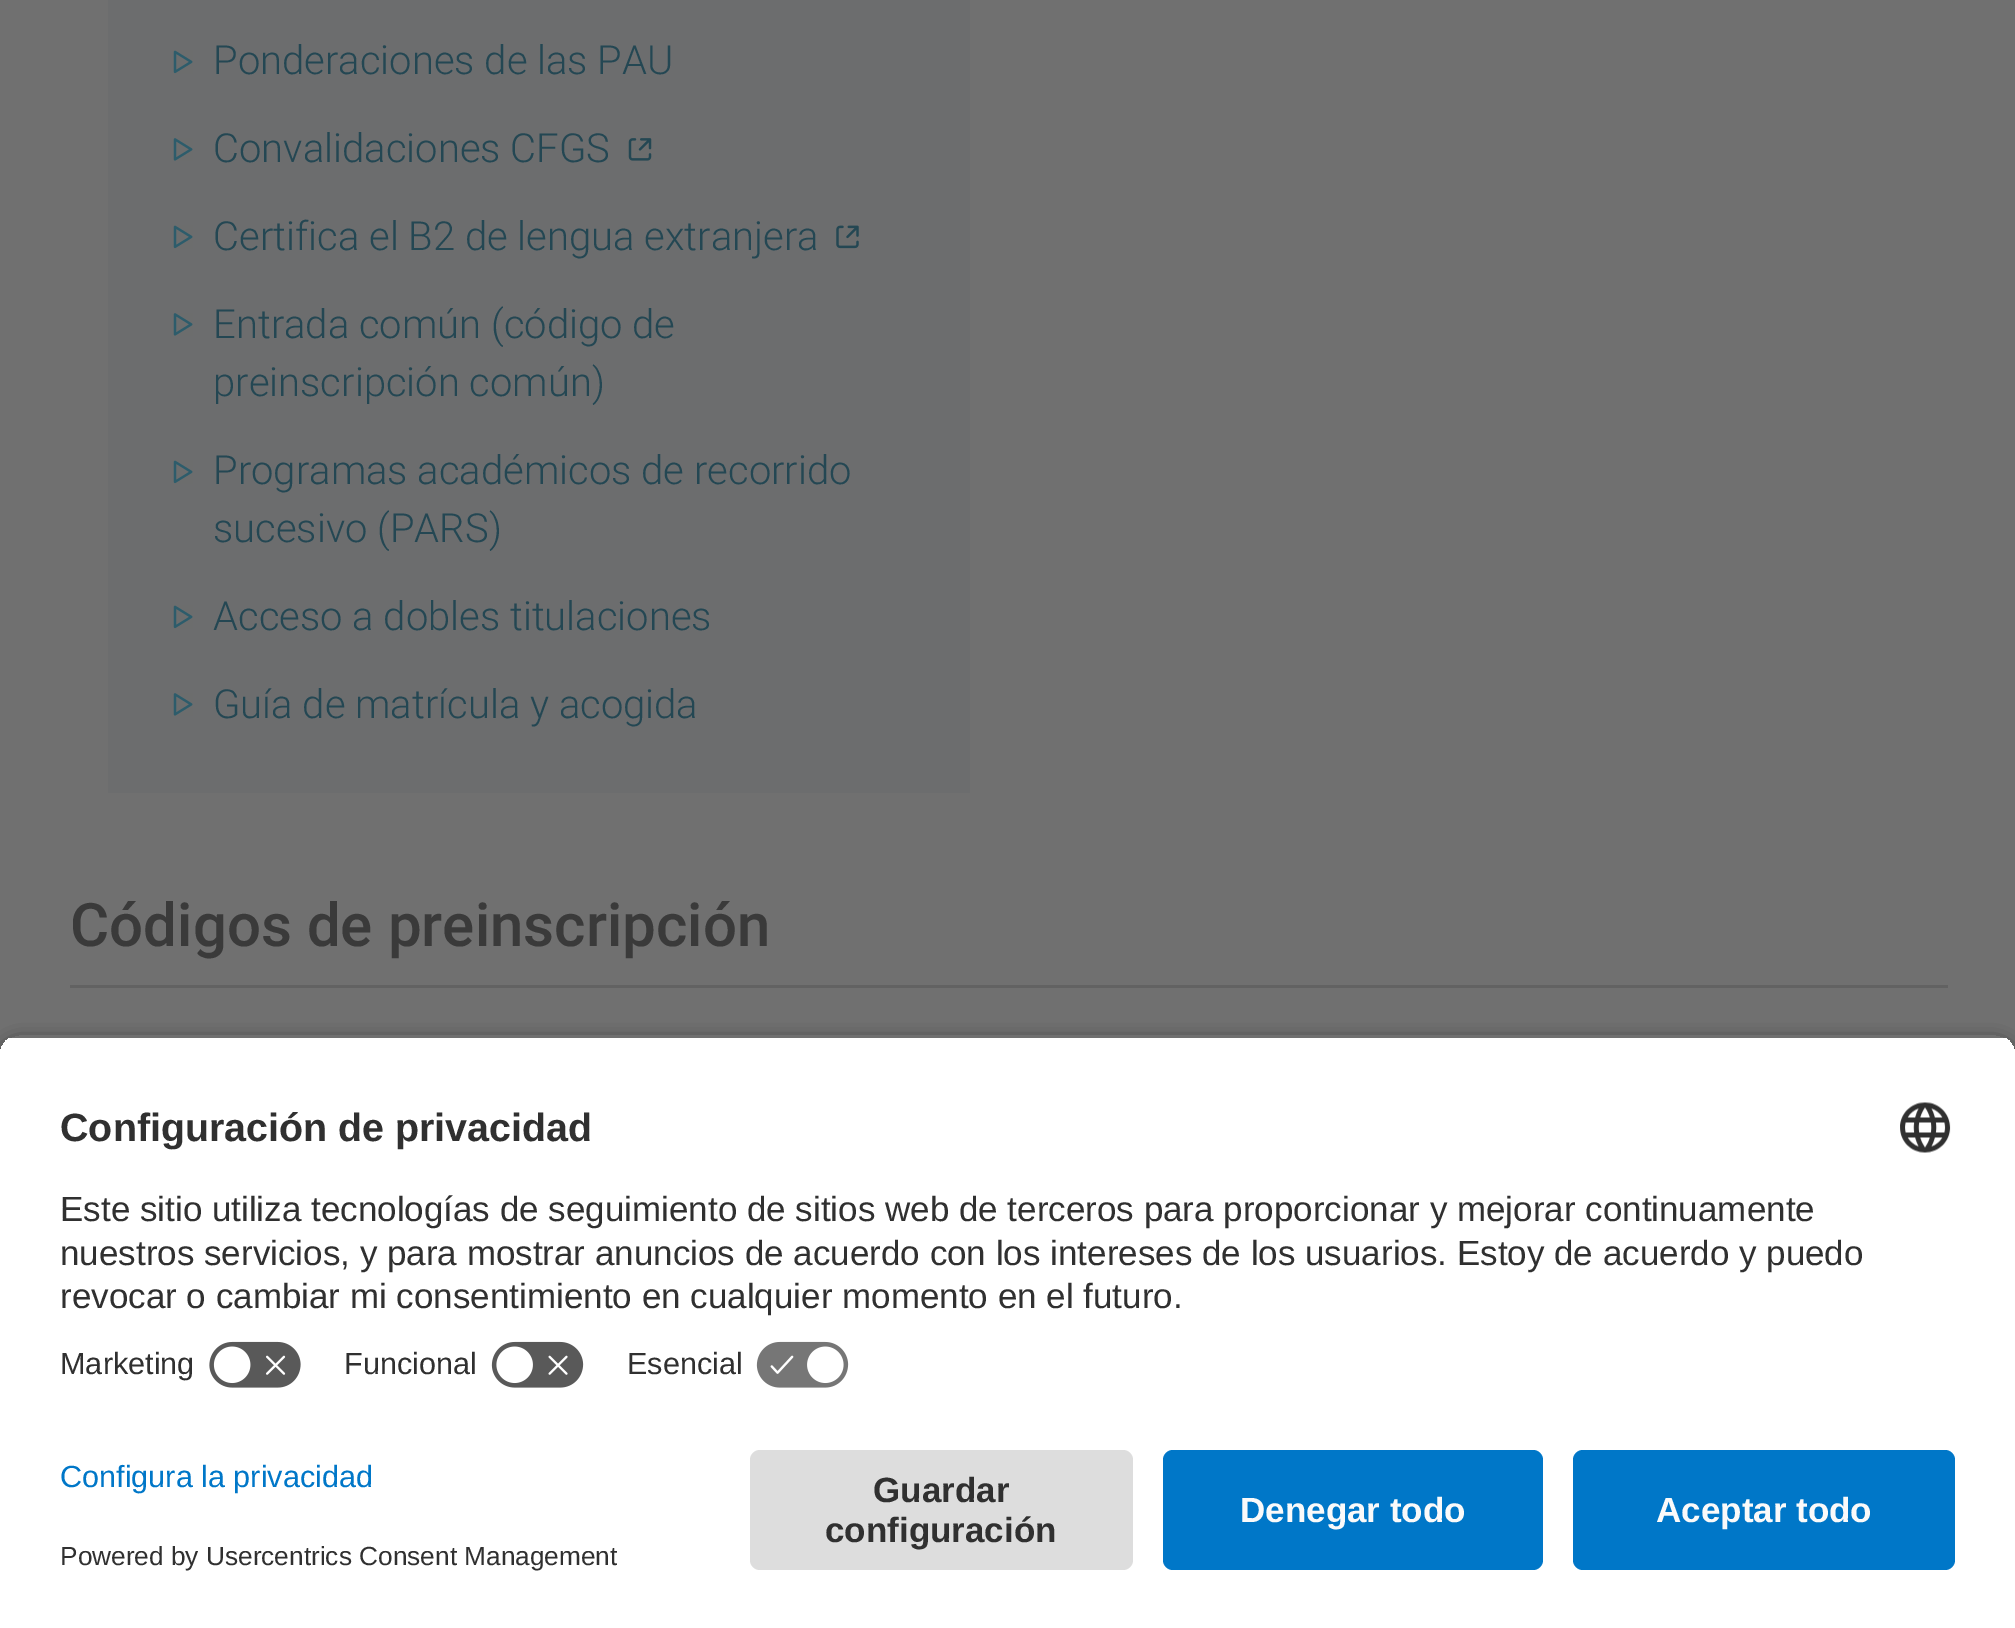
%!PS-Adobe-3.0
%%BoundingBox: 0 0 2015 1628
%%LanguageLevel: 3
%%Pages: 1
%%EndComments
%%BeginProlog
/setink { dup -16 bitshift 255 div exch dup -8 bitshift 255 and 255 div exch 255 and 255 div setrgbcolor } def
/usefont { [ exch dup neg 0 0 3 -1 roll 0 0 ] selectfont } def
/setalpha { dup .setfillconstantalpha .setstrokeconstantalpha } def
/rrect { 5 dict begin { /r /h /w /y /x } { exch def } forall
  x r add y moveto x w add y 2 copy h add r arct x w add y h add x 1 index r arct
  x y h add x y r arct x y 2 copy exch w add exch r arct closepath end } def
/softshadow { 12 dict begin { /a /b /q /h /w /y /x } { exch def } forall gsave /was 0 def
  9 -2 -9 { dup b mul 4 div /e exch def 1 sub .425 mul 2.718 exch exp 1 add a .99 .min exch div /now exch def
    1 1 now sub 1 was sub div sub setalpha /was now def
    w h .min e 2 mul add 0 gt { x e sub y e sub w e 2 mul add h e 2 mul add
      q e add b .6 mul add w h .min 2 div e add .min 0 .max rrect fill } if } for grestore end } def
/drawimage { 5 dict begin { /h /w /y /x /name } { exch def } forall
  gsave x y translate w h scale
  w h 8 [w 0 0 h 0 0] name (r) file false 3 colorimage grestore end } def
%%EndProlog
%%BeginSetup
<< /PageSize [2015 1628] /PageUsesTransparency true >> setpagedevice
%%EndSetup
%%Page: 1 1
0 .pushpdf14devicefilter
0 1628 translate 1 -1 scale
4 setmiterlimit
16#707070 setink
0 0 2015 1628 rectfill
16#6C6D6E setink
108 0 862 793 rectfill
(img1.raw) 173 50 20 24 drawimage
/Roboto-Light 40 usefont
16#244753 setink
213 74 moveto (Ponderaciones de las PAU) show
(img2.raw) 173 138 20 23 drawimage
213 162 moveto (Convalidaciones CFGS) show
(img3.raw) 628 138 24 23 drawimage
(img1.raw) 173 225 20 24 drawimage
213 250 moveto (Certifica el B2 de lengua extranjera) show
(img4.raw) 836 225 23 24 drawimage
(img2.raw) 173 313 20 23 drawimage
213 338 moveto (Entrada común \(código de) show
213 396 moveto (preinscripción común\)) show
(img1.raw) 173 460 20 24 drawimage
213 484 moveto (Programas académicos de recorrido) show
213 542 moveto (sucesivo \(PARS\)) show
(img1.raw) 173 605 20 24 drawimage
213 630 moveto (Acceso a dobles titulaciones) show
(img2.raw) 173 693 20 23 drawimage
213 718 moveto (Guía de matrícula y acogida) show
/Roboto-Medium 60 usefont
16#3A3A3A setink
70 946 moveto (Códigos de preinscripción) show
16#626262 setink
70 985 1878 3 rectfill
gsave
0 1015 moveto 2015 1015 lineto 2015 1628 lineto 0 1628 lineto closepath 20 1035 moveto 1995 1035 lineto 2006 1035 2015 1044 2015 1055 curveto 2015 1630 lineto 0 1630 lineto 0 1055 lineto 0 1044 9 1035 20 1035 curveto closepath eoclip newpath
16#000000 setink
0 1043 2015 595 20 9 0.8 softshadow
grestore
gsave
20 1035 moveto 1995 1035 lineto 2006 1035 2015 1044 2015 1055 curveto 2015 1430 lineto 0 1430 lineto 0 1055 lineto 0 1044 9 1035 20 1035 curveto closepath clip newpath
16#FFFFFF setink
0 1038 2015 392 rectfill
0 1038 2015 292 rectfill
grestore
/LiberationSans-Bold 39.4 usefont
16#303030 setink
60 1141 moveto (Configuración de privacidad) show
(img5.raw) 1900 1102 51 51 drawimage
/LiberationSans-Regular 35 usefont
[
    [(Este sitio utiliza tecnologías de seguimiento de sitios web de terceros para proporcionar y mejorar continuamente) 60 1221]
    [(nuestros servicios, y para mostrar anuncios de acuerdo con los intereses de los usuarios. Estoy de acuerdo y puedo) 60 1265]
    [(revocar o cambiar mi consentimiento en cualquier momento en el futuro.) 60 1308]
] { aload pop moveto show } forall
/LiberationSans-Regular 30.6 usefont
60 1374 moveto (Marketing) show
(img6.raw) 209 1341 92 47 drawimage
344 1374 moveto (Funcional) show
(img7.raw) 491 1341 93 47 drawimage
627 1374 moveto (Esencial) show
(img8.raw) 756 1341 93 47 drawimage
16#FFFFFF setink
0 1430 2015 198 rectfill
16#0077C8 setink
60 1487 moveto (Configura la privacidad) show
/LiberationSans-Regular 26.25 usefont
16#303030 setink
60 1565 moveto (Powered by Usercentrics Consent Management) show
16#DDDDDD setink
750 1450 383 120 10 rrect fill
/LiberationSans-Bold 35 usefont
16#303030 setink
873 1502 moveto (Guardar) show
825 1542 moveto (configuración) show
16#0077C8 setink
1163 1450 380 120 10 rrect fill
16#FAFAFA setink
1240 1522 moveto (Denegar todo) show
16#0077C8 setink
1573 1450 382 120 10 rrect fill
16#FAFAFA setink
1656 1522 moveto (Aceptar todo) show
.poppdf14devicefilter showpage
%%EOF
